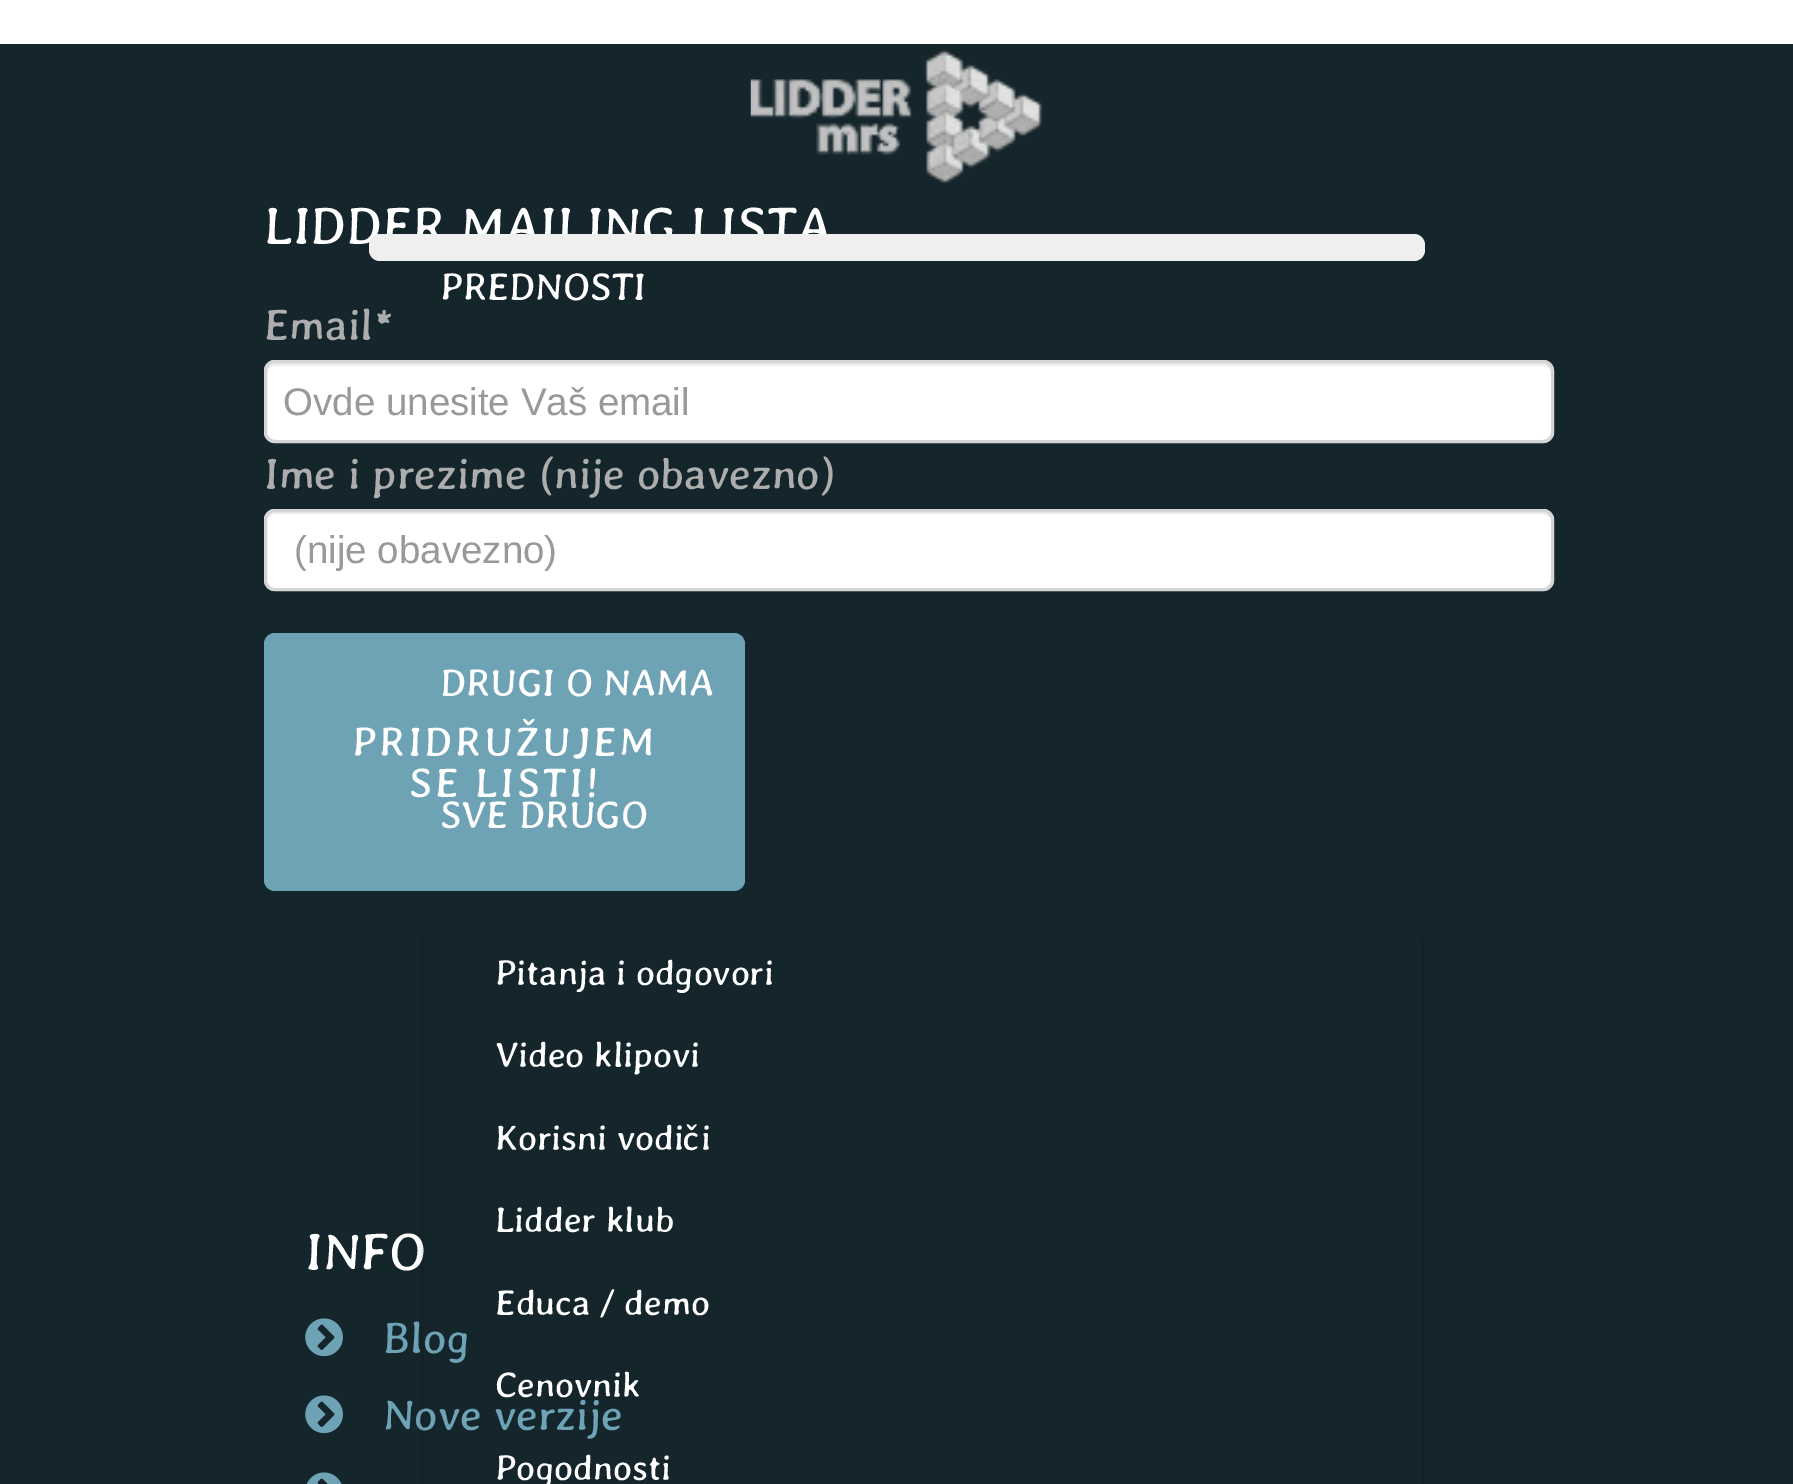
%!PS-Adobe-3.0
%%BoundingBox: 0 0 1793 1484
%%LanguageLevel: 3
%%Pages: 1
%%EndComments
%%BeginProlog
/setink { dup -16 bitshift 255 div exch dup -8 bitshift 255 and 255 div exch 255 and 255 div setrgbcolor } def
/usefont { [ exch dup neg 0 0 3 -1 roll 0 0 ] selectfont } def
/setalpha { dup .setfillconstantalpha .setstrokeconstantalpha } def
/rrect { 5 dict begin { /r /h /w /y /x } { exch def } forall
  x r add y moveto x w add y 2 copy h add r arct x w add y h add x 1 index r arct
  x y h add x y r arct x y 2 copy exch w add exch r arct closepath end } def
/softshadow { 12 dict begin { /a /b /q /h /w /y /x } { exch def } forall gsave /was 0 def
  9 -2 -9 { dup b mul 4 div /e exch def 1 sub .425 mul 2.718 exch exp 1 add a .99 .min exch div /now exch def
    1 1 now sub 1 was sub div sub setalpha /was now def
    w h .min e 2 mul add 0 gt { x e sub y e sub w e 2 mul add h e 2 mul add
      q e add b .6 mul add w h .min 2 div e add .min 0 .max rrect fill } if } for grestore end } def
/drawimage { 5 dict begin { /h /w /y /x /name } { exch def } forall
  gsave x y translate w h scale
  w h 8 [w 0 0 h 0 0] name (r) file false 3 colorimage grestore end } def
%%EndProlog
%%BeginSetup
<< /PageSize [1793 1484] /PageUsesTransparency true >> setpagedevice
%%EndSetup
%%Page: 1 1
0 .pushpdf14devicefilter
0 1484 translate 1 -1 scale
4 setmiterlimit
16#FFFFFF setink
0 0 1793 1484 rectfill
16#14252B setink
0 44 1793 1440 rectfill
/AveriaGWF-MediumItalic 52.75 usefont
16#FFFFFF setink
264 244 moveto (LIDDER MAILING LISTA) show
/AveriaGWF-MediumItalic 44 usefont
16#ADADAD setink
264 340 moveto (Email*) show
16#FFFFFF setink
264 360 1290 83 11 rrect fill
16#ECECEC setink
275 366 moveto 1543 366 lineto 1547 366 1551 369 1551 374 curveto 1551 371 lineto 1551 367 1547 363 1543 363 curveto 275 363 lineto 271 363 267 367 267 371 curveto 267 374 lineto 267 369 270 366 275 366 curveto closepath fill
16#D5D5D5 setink
3 setlinewidth
265.5 361.5 1287 80 9.5 rrect stroke
/LiberationSans-Regular 38.5 usefont
16#999999 setink
283 415 moveto (Ovde unesite Vaš email) show
/AveriaGWF-MediumItalic 44 usefont
16#ADADAD setink
264 489 moveto (Ime i prezime \(nije obavezno\)) show
16#FFFFFF setink
264 509 1290 82 11 rrect fill
16#ECECEC setink
275 514 moveto 1543 514 lineto 1547 514 1551 518 1551 522 curveto 1551 517 1549 512 1543 512 curveto 275 512 lineto 269 512 267 517 267 522 curveto 267 518 270 514 275 514 curveto closepath fill
16#D5D5D5 setink
265.5 510.5 1287 79 9.5 rrect stroke
/LiberationSans-Regular 38.5 usefont
16#999999 setink
294 563 moveto (\(nije obavezno\)) show
16#6EA2B5 setink
264 633 481 258 11 rrect fill
/AveriaGWF-MediumItalic 41.25 usefont
16#FFFFFF setink
352 756 moveto 2.75 0 (PRIDRUŽUJEM) ashow
409 797 moveto 2.75 0 (SE LISTI!) ashow
/AveriaGWF-MediumItalic 52.75 usefont
305 1270 moveto (INFO) show
(img1.raw) 305 1318 38 39 drawimage
/AveriaGWF-MediumItalic 44 usefont
16#6EA2B5 setink
383 1353 moveto (Blog) show
(img1.raw) 305 1395 38 39 drawimage
383 1430 moveto (Nove verzije) show
(img2.raw) 306 1472 36 12 drawimage
(img3.raw) 750 49 293 135 drawimage
16#EFEFEF setink
369 234 1056 27 11 rrect fill
/AveriaGWF-MediumItalic 38.5 usefont
16#FFFFFF setink
[
    [(PREDNOSTI) 440 300]
    [(DRUGI O NAMA) 440 696]
    [(SVE DRUGO) 440 828]
] { aload pop moveto show } forall
gsave
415 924 moveto 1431 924 lineto 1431 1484 lineto 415 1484 lineto closepath 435 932 moveto 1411 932 lineto 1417 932 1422 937 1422 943 curveto 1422 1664 lineto 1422 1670 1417 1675 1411 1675 curveto 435 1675 lineto 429 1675 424 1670 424 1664 curveto 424 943 lineto 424 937 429 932 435 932 curveto closepath eoclip newpath
16#000000 setink
421 930 1004 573 14 1.5 0.1 softshadow
grestore
/AveriaGWF-MediumItalic 35.75 usefont
[
    [(Pitanja i odgovori) 495 985]
    [(Video klipovi) 495 1067]
    [(Korisni vodiči) 495 1150]
    [(Lidder klub) 495 1232]
    [(Educa / demo) 495 1315]
    [(Cenovnik) 495 1397]
    [(Pogodnosti) 495 1480]
] { aload pop moveto show } forall
.poppdf14devicefilter showpage
%%EOF
